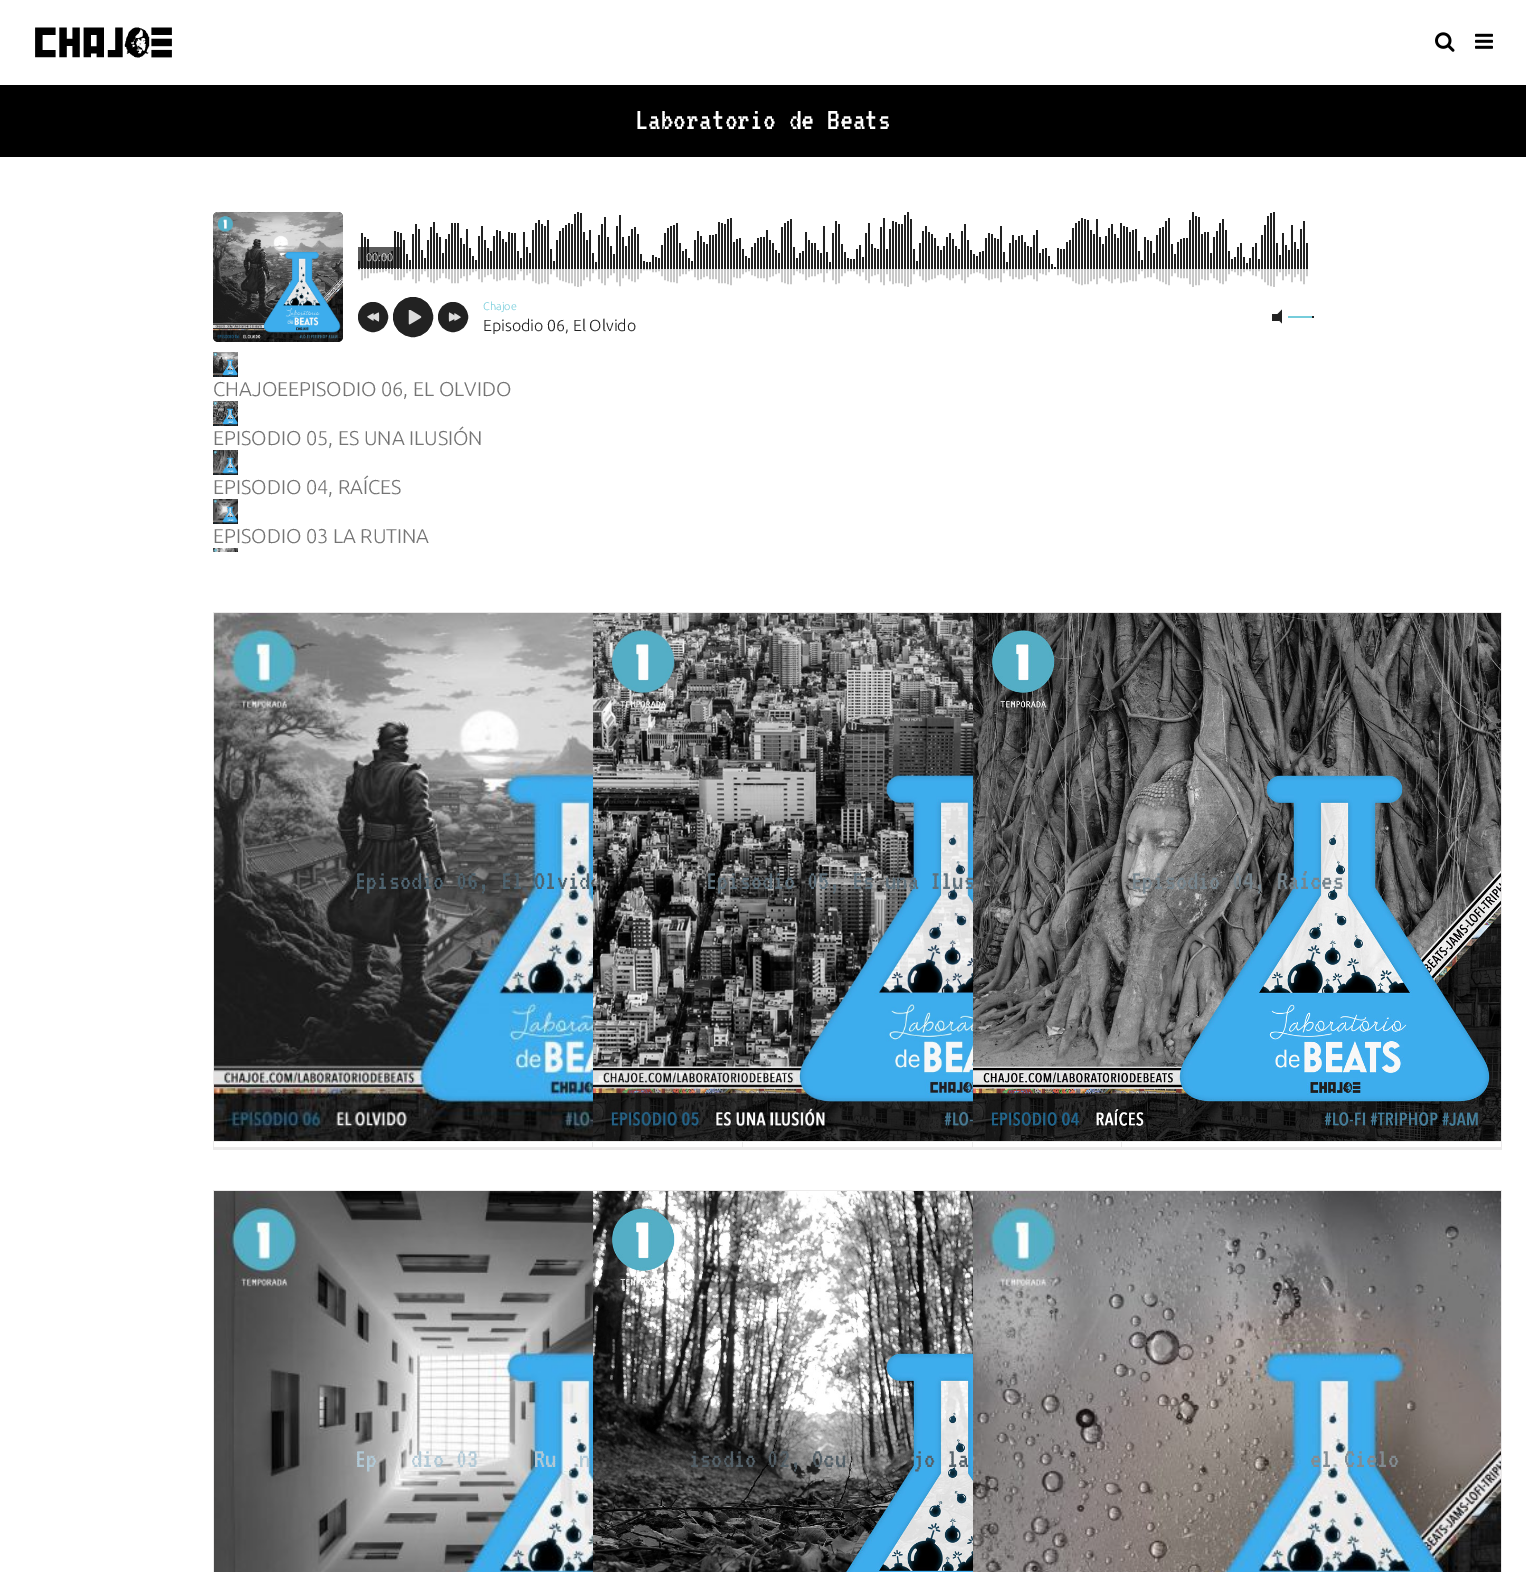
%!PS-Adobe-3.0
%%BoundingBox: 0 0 1526 1572
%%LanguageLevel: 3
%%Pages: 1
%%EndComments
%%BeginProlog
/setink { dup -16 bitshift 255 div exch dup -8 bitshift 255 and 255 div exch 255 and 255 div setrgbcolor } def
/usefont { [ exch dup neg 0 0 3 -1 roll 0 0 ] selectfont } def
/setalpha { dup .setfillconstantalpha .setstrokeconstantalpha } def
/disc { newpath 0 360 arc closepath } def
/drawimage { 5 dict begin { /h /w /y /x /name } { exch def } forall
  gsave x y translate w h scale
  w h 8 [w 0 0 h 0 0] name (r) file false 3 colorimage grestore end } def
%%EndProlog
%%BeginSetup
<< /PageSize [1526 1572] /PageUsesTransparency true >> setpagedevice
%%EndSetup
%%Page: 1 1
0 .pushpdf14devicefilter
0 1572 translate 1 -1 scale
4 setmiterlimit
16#FFFFFF setink
0 0 1526 1572 rectfill
(img1.raw) 35 27 137 31 drawimage
(img2.raw) 1435 32 20 20 drawimage
(img3.raw) 1475 33 18 16 drawimage
16#000000 setink
0 85 1526 72 rectfill
/VT323-Regular 32 usefont
16#FFFFFF setink
635 129 moveto (Laboratorio de Beats) show
(img4.raw) 213 212 130 130 drawimage
(img5.raw) 358 212 950 75 drawimage
0.7 setalpha
16#151515 setink
358 247 44 21 rectfill
/Ubuntu-Light 11 usefont
1 setalpha
16#EEEEEE setink
366 261 moveto (00:00) show
16#222222 setink
373 317 14.5 disc gsave fill grestore
stroke
(img6.raw) 367 312 13 10 drawimage
413 317 19.5 disc gsave fill grestore
stroke
(img7.raw) 408 310 14 15 drawimage
453 317 14.5 disc gsave fill grestore
stroke
(img8.raw) 448 312 13 10 drawimage
16#76CDDB setink
483 310 moveto (Chajoe) show
/Ubuntu-Light 16 usefont
16#222222 setink
483 331 moveto (Episodio 06, El Olvido) show
1272 314 7 7 rectfill
1282 309.5 moveto 1282 323.5 lineto 1275 316.5 lineto closepath fill
16#76CDDB setink
1288 316 24 2 rectfill
16#222222 setink
1312 316 2 2 rectfill
(img9.raw) 213 352 25 25 drawimage
/Ubuntu-Light 20 usefont
16#747474 setink
213 396 moveto (CHAJOEEPISODIO 06, EL OLVIDO) show
(img10.raw) 213 401 25 25 drawimage
213 445 moveto (EPISODIO 05, ES UNA ILUSIÓN) show
(img11.raw) 213 450 25 25 drawimage
213 494 moveto (EPISODIO 04, RAÍCES) show
(img12.raw) 213 499 25 25 drawimage
213 543 moveto (EPISODIO 03 LA RUTINA) show
(img13.raw) 213 548 25 4 drawimage
[
    [213 612 1289 1 16#EBEAEA]
    [742 1142 1 8 16#EBEAEA]
    [213 1147 759 3 16#EBEAEA]
    [213 612 1 538 16#EBEAEA]
    [214 1141 378 1 16#EBEAEA]
    [592 612 1 538 16#EBEAEA]
] { aload pop setink rectfill } forall
(img14.raw) 214 613 379 528 drawimage
/VT323-Regular 28 usefont
16#4E636F setink
355 889 moveto (Episodio 06, El Olvido) show
[
    [1121 1142 1 8 16#EBEAEA]
    [593 1141 379 1 16#EBEAEA]
    [1501 612 1 538 16#EBEAEA]
    [972 1147 530 3 16#EBEAEA]
    [972 612 1 538 16#EBEAEA]
] { aload pop setink rectfill } forall
(img15.raw) 593 613 380 528 drawimage
16#5E707B setink
706 889 moveto (Episodio 05, Es una Ilus) show
16#EBEAEA setink
973 1141 528 1 rectfill
(img16.raw) 973 613 528 528 drawimage
16#76858E setink
1131 889 moveto (Episodio 04, Raíces) show
16#EBEAEA setink
213 1190 1289 1 rectfill
213 1190 1 382 rectfill
(img17.raw) 214 1191 379 381 drawimage
16#B1C9D6 setink
[
    [(Ep) 355 1467]
    [(dio 03) 411 1467]
    [(Ru) 534 1467]
    [(n) 579 1467]
] { aload pop moveto show } forall
(img18.raw) 593 1191 380 381 drawimage
16#536068 setink
689 1467 moveto (isodio 02, Ocu) show
913 1467 moveto (jo la) show
16#EBEAEA setink
1501 1190 1 382 rectfill
(img19.raw) 973 1191 528 381 drawimage
16#828B91 setink
1310 1467 moveto (el Cielo) show
.poppdf14devicefilter showpage
%%EOF
